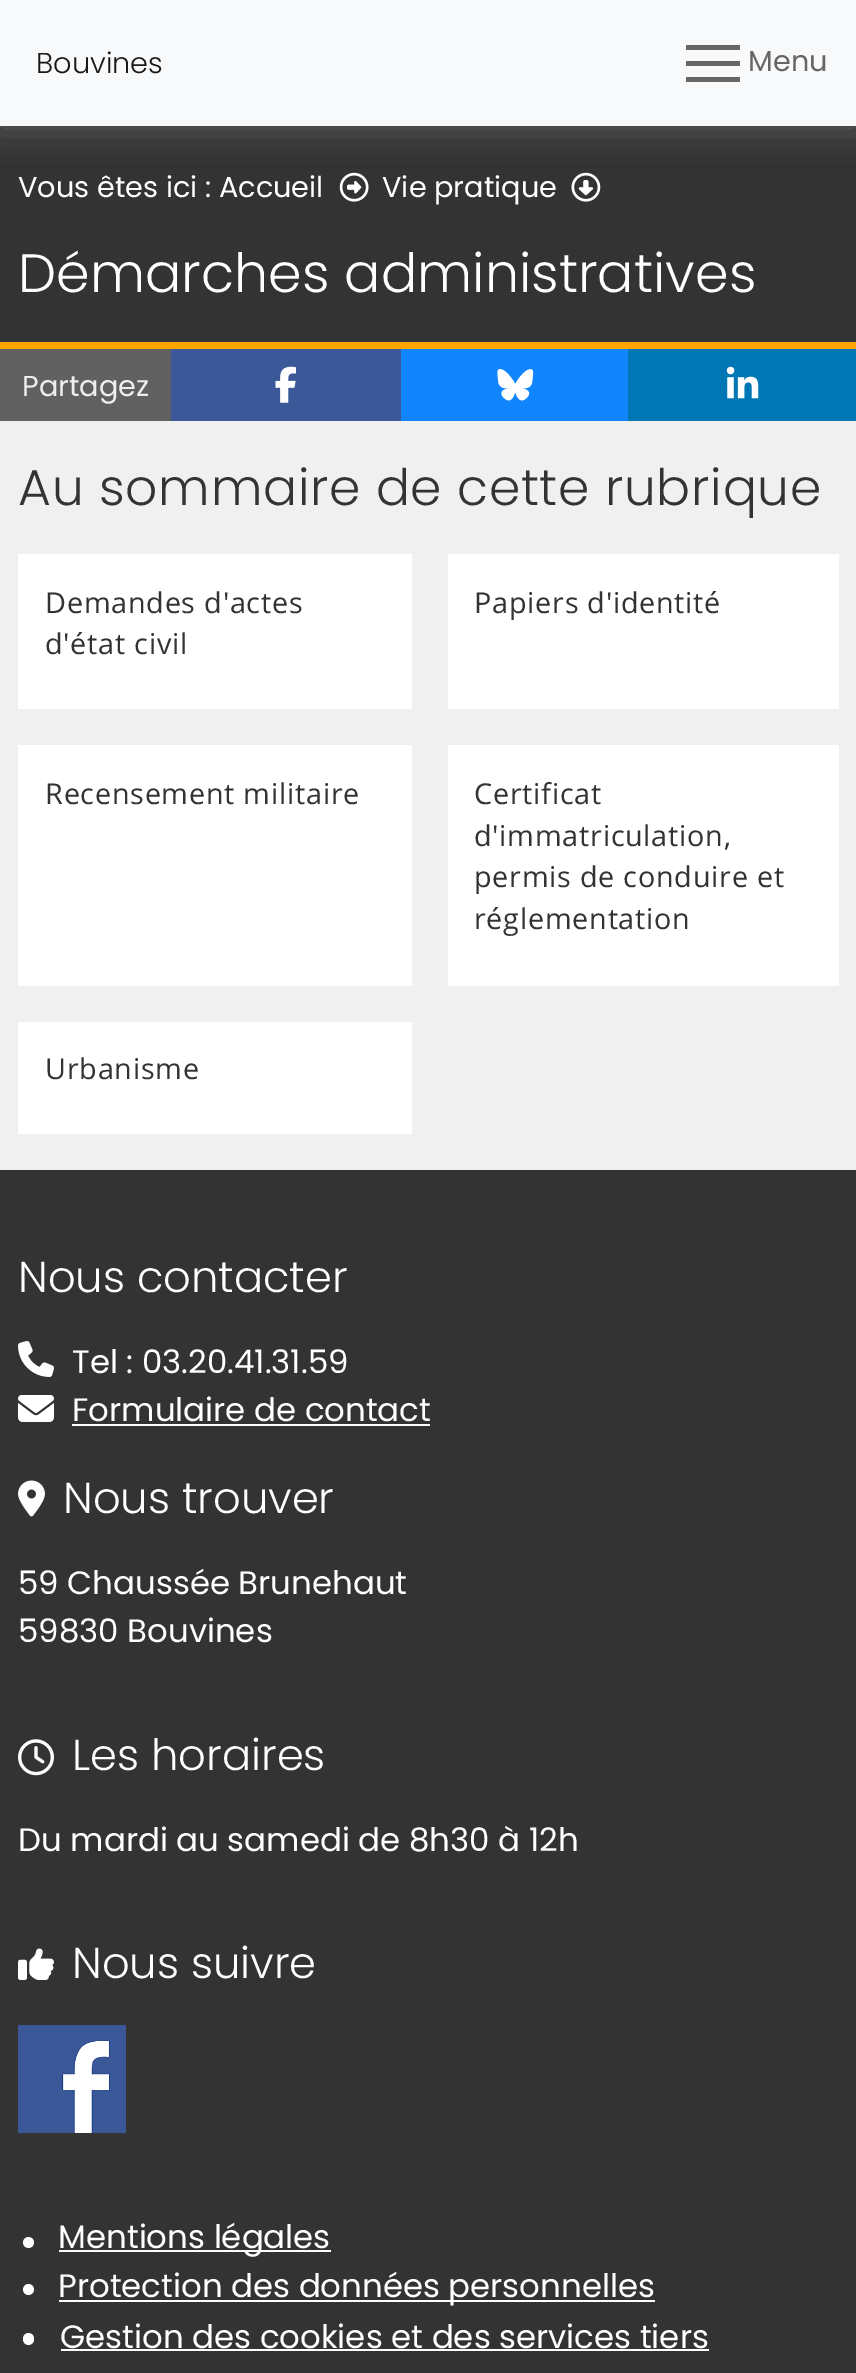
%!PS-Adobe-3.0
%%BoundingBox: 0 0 856 2373
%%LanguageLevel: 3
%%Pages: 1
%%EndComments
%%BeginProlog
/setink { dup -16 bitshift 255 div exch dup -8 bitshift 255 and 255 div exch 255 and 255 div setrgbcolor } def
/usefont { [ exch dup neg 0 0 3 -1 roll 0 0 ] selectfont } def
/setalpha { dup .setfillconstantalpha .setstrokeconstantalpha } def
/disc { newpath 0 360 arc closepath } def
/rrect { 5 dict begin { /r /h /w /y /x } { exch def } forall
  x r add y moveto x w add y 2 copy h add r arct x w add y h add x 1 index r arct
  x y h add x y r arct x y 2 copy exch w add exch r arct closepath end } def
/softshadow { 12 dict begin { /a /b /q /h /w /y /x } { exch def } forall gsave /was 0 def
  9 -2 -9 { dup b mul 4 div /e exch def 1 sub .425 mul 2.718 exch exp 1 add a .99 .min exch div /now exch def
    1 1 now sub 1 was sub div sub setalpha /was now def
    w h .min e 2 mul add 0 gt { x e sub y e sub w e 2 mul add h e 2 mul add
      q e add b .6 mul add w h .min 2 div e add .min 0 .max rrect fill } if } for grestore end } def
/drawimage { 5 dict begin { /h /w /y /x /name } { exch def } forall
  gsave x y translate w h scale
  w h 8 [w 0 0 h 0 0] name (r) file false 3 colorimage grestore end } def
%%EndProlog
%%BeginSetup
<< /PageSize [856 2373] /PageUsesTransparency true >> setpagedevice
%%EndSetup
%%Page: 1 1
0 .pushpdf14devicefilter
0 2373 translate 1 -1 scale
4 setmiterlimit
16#F0F0F0 setink
0 0 856 2373 rectfill
16#333333 setink
0 126 856 216 rectfill
(img1.raw) 339 172 30 30 drawimage
(img2.raw) 571 172 30 30 drawimage
16#666666 setink
0 0 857 126 0 17 1 softshadow
16#F8F9FA setink
0 0 856 126 rectfill
/Poppins-Light 28.75 usefont
16#191919 setink
36 73 moveto (Bouvines) show
[
    [686 45 54 5 16#666666]
    [686 61 54 5 16#666666]
    [686 77 54 5 16#666666]
] { aload pop setink rectfill } forall
/Poppins-Regular 28.75 usefont
748 71 moveto (Menu) show
16#FFFFFF setink
18 197 moveto (Vous êtes ici : Accueil) show
382 197 moveto (Vie pratique) show
/Poppins-Light 54 usefont
18 292 moveto (Démarches administratives) show
16#FFA500 setink
0 342 856 7 rectfill
16#616161 setink
0 349 171 72 rectfill
/Poppins-Regular 28.75 usefont
16#EEEEEE setink
22 396 moveto (Partagez) show
16#3B5998 setink
171 349 230 72 rectfill
(img3.raw) 275 366 21 37 drawimage
16#1185FE setink
401 349 227 72 rectfill
(img4.raw) 497 369 37 32 drawimage
16#0077B5 setink
628 349 228 72 rectfill
(img5.raw) 726 366 33 33 drawimage
/Poppins-Light 50.4 usefont
16#333333 setink
18 505 moveto 0.75 0 (Au sommaire de cette rubrique) ashow
16#FFFFFF setink
18 554 394 155 rectfill
/OpenSans-Regular 28.75 usefont
16#333333 setink
45 613 moveto 0.75 0 (Demandes d'actes) ashow
45 654 moveto 0.75 0 (d'état civil) ashow
16#FFFFFF setink
448 554 391 155 rectfill
16#333333 setink
474 613 moveto 0.75 0 (Papiers d'identité) ashow
16#FFFFFF setink
18 745 394 241 rectfill
16#333333 setink
45 804 moveto 0.75 0 (Recensement militaire) ashow
16#FFFFFF setink
448 745 391 241 rectfill
16#333333 setink
474 804 moveto 0.75 0 (Certificat) ashow
474 846 moveto 0.75 0 (d'immatriculation,) ashow
474 887 moveto 0.75 0 (permis de conduire et) ashow
474 929 moveto 0.75 0 (réglementation) ashow
16#FFFFFF setink
18 1022 394 112 rectfill
16#333333 setink
45 1079 moveto 0.75 0 (Urbanisme) ashow
0 1170 856 1203 rectfill
/Poppins-Light 43.25 usefont
16#FFFFFF setink
18 1292 moveto (Nous contacter) show
(img6.raw) 18 1341 36 36 drawimage
/Poppins-Regular 32.4 usefont
72 1373 moveto (Tel : 03.20.41.31.59) show
(img7.raw) 18 1395 36 27 drawimage
72 1421 moveto (Formulaire de contact) show
72 1424 358 2 rectfill
(img8.raw) 18 1480 27 37 drawimage
/Poppins-Light 43.25 usefont
63 1513 moveto (Nous trouver) show
/Poppins-Regular 32.4 usefont
18 1594 moveto (59 Chaussée Brunehaut) show
18 1642 moveto (59830 Bouvines) show
(img9.raw) 18 1739 36 37 drawimage
/Poppins-Light 43.25 usefont
72 1770 moveto (Les horaires) show
/Poppins-Regular 32.4 usefont
18 1851 moveto (Du mardi au samedi de 8h30 à 12h) show
(img10.raw) 18 1948 36 32 drawimage
/Poppins-Light 43.25 usefont
72 1978 moveto (Nous suivre) show
(img11.raw) 18 2025 108 108 drawimage
28.5 2242.5 5.5 disc fill
59 2250 272 2 rectfill
/Poppins-Regular 32.4 usefont
58 2248 moveto (Mentions légales) show
28.5 2289.5 5.5 disc fill
59 2300 596 2 rectfill
58 2297 moveto (Protection des données personnelles) show
23 2333 11 12 5.5 rrect fill
60 2348 moveto (Gestion des cookies et des services tiers) show
61 2349 648 2 rectfill
.poppdf14devicefilter showpage
%%EOF
